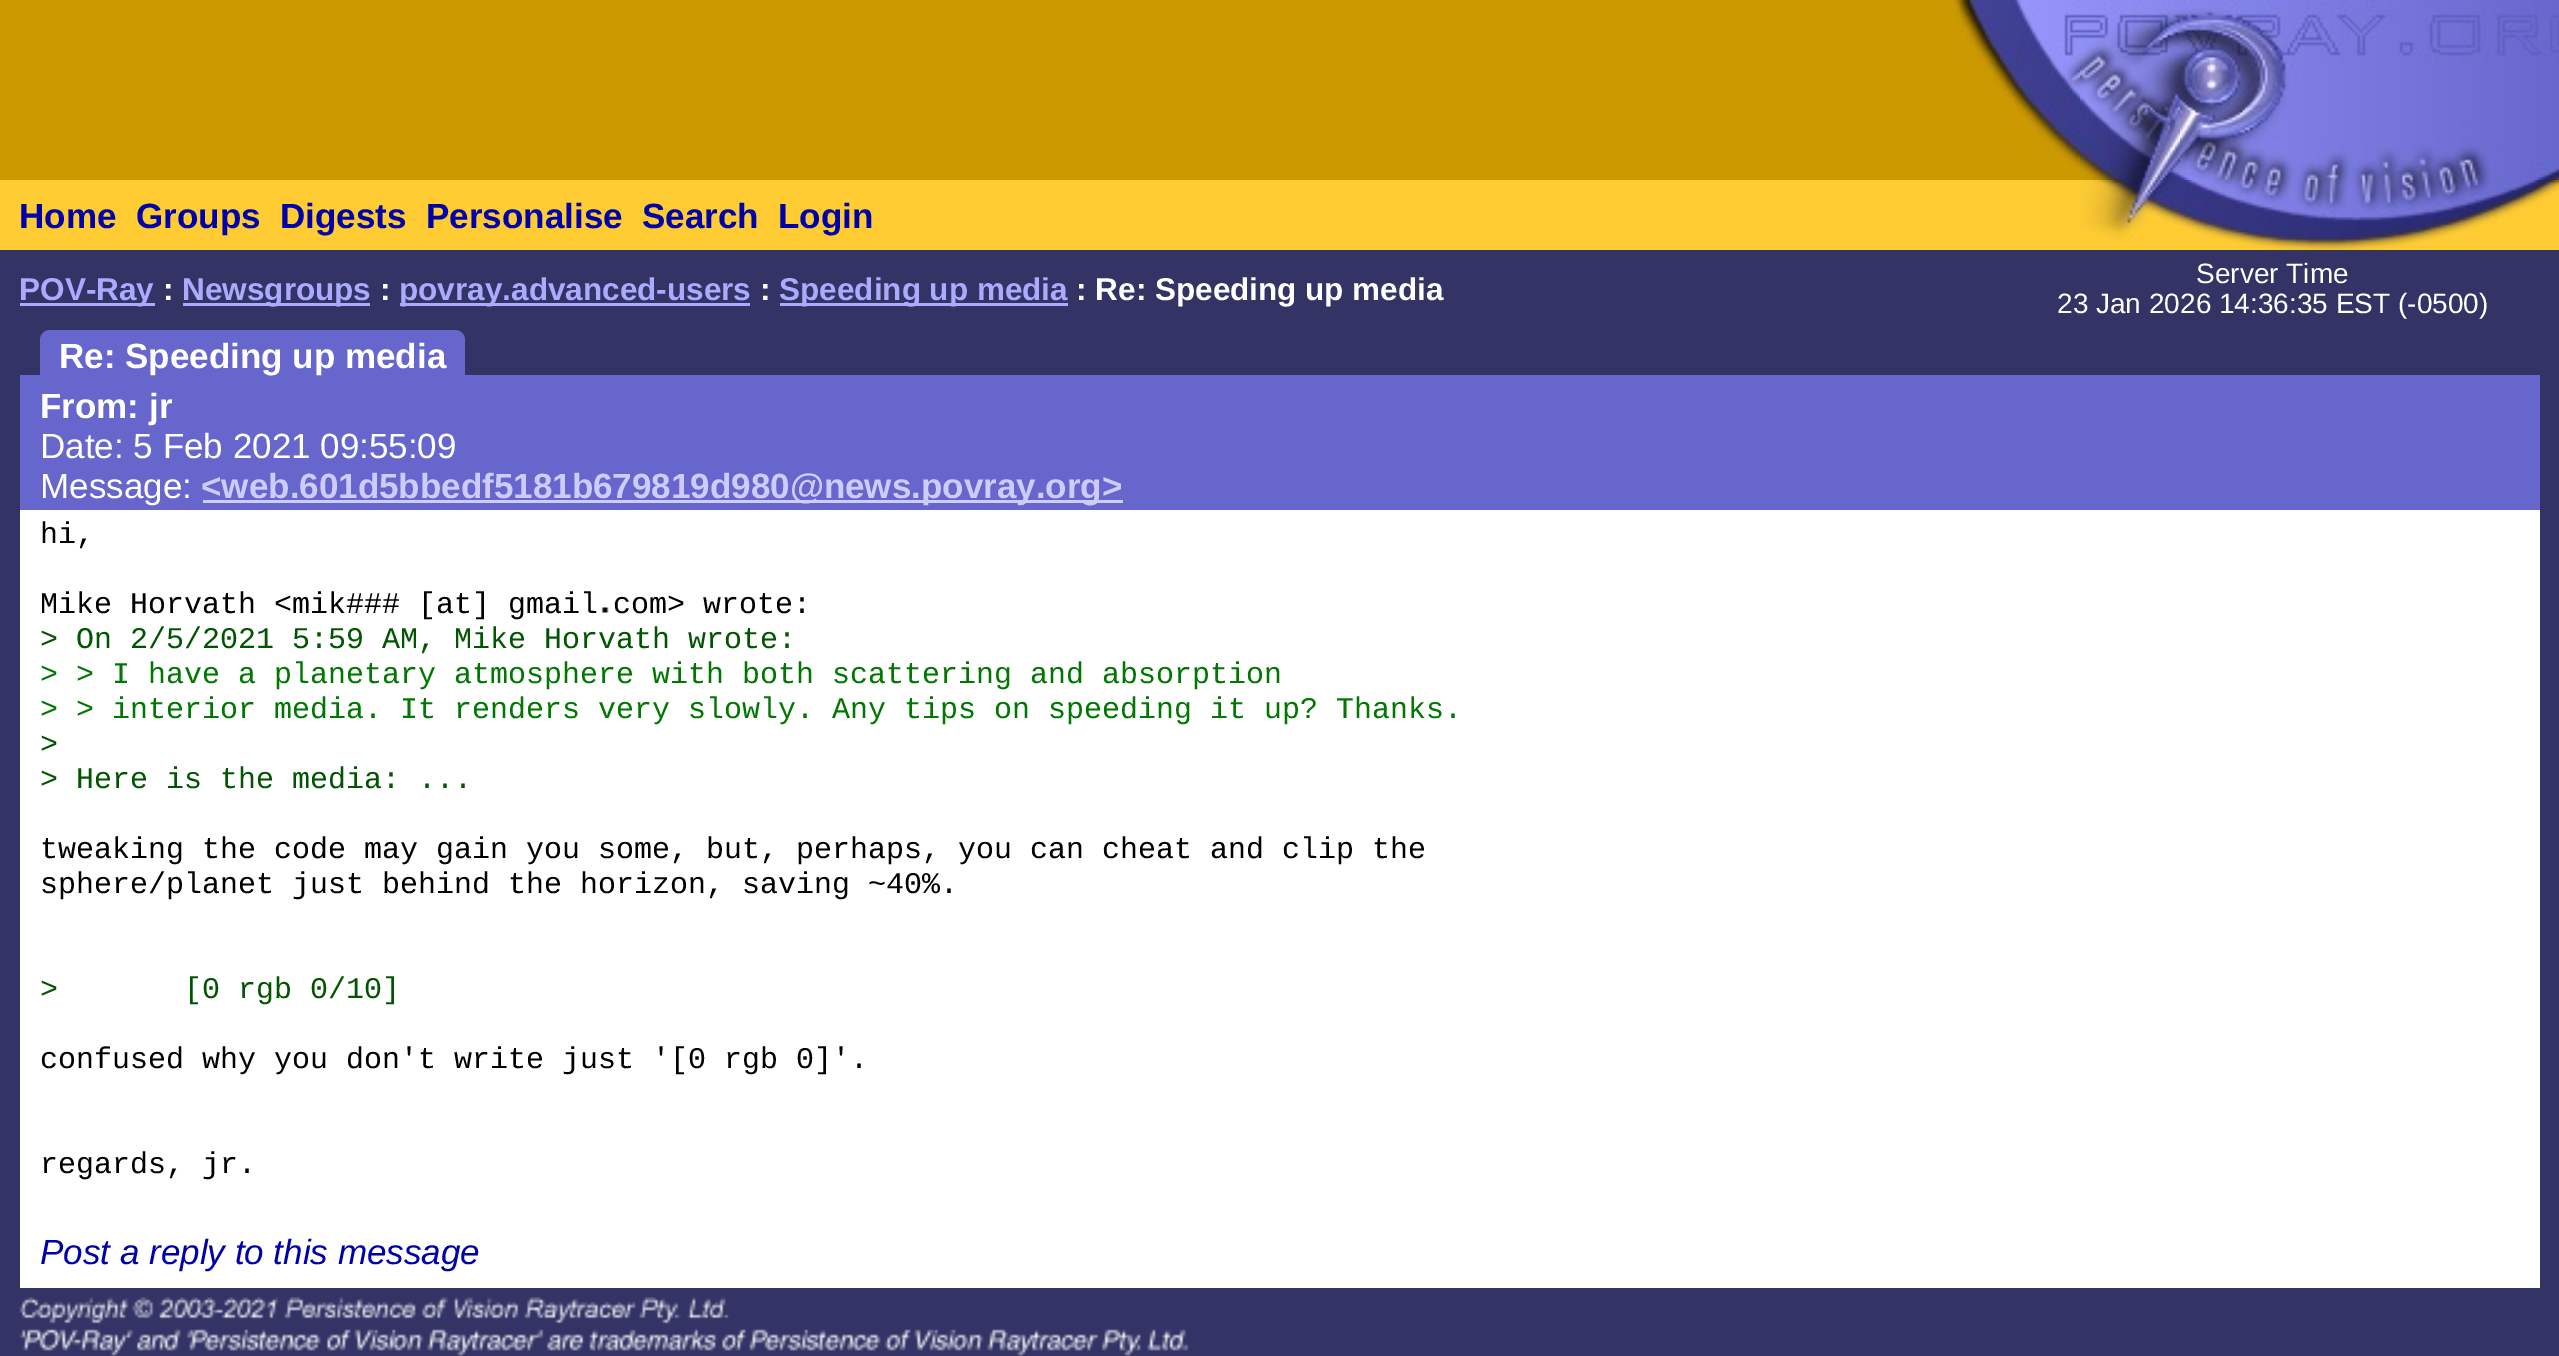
%!PS-Adobe-3.0
%%BoundingBox: 0 0 2559 1356
%%LanguageLevel: 3
%%Pages: 1
%%EndComments
%%BeginProlog
/setink { dup -16 bitshift 255 div exch dup -8 bitshift 255 and 255 div exch 255 and 255 div setrgbcolor } def
/usefont { [ exch dup neg 0 0 3 -1 roll 0 0 ] selectfont } def
/drawimage { 5 dict begin { /h /w /y /x /name } { exch def } forall
  gsave x y translate w h scale
  w h 8 [w 0 0 h 0 0] name (r) file false 3 colorimage grestore end } def
%%EndProlog
%%BeginSetup
<< /PageSize [2559 1356] >> setpagedevice
%%EndSetup
%%Page: 1 1
0 1356 translate 1 -1 scale
4 setmiterlimit
16#333366 setink
0 0 2559 1356 rectfill
16#CC9900 setink
0 0 2080 180 rectfill
(img1.raw) 1949 0 131 167 drawimage
(img2.raw) 2080 0 100 180 drawimage
(img3.raw) 2180 0 379 180 drawimage
16#FFCC33 setink
0 180 2080 70 rectfill
/LiberationSans-Bold 35 usefont
16#0000AA setink
[
    [(Home) 19 228]
    [(Groups) 136 228]
    [(Digests) 280 228]
    [(Personalise) 426 228]
    [(Search) 642 228]
    [(Login) 778 228]
] { aload pop moveto show } forall
16#FFCC33 setink
2080 244 100 6 rectfill
(img4.raw) 2080 180 100 64 drawimage
(img5.raw) 2180 180 379 70 drawimage
16#AAAAFF setink
20 303 135 3 rectfill
/LiberationSans-Bold 31.5 usefont
19 300 moveto (POV-Ray) show
16#FFFFFF setink
163 300 moveto (:) show
16#AAAAFF setink
183 303 187 3 rectfill
182 300 moveto (Newsgroups) show
16#FFFFFF setink
380 300 moveto (:) show
16#AAAAFF setink
400 303 350 3 rectfill
399 300 moveto (povray.advanced-users) show
16#FFFFFF setink
760 300 moveto (:) show
16#AAAAFF setink
780 303 288 3 rectfill
779 300 moveto (Speeding up media) show
16#FFFFFF setink
1076 300 moveto (: Re: Speeding up media) show
/LiberationSans-Regular 28 usefont
2196 283 moveto (Server Time) show
2057 313 moveto (23 Jan 2026 14:36:35 EST \(-0500\)) show
16#6666CC setink
50 330 moveto 455 330 lineto 460.5 330 465 334.5 465 340 curveto 465 375 lineto 40 375 lineto 40 340 lineto 40 334.5 44.5 330 50 330 curveto closepath fill
20 375 2520 10 rectfill
/LiberationSans-Bold 35 usefont
16#FFFFFF setink
59 368 moveto (Re: Speeding up media) show
16#6666CC setink
20 385 2520 125 rectfill
16#FFFFFF setink
40 418 moveto (From: jr) show
/LiberationSans-Regular 35 usefont
40 458 moveto (Date: 5 Feb 2021 09:55:09) show
40 498 moveto (Message:) show
16#CCCCFF setink
203 500 920 3 rectfill
/LiberationSans-Bold 35 usefont
201 498 moveto (<web.601d5bbedf5181b679819d980@news.povray.org>) show
16#FFFFFF setink
20 510 2520 5 rectfill
20 515 2520 773 rectfill
/LiberationMono-Regular 30 usefont
16#000000 setink
40 543 moveto (hi,) show
40 613 moveto (Mike Horvath <mik### [at] gmail) show
(img6.raw) 601 607 8 6 drawimage
613 613 moveto (com> wrote:) show
16#005500 setink
40 648 moveto (> On 2/5/2021 5:59 AM, Mike Horvath wrote:) show
16#007700 setink
40 683 moveto (> > I have a planetary atmosphere with both scattering and absorption) show
40 718 moveto (> > interior media. It renders very slowly. Any tips on speeding it up? Thanks.) show
16#005500 setink
40 753 moveto (>) show
40 788 moveto (> Here is the media: ...) show
16#000000 setink
40 858 moveto (tweaking the code may gain you some, but, perhaps, you can cheat and clip the) show
40 893 moveto (sphere/planet just behind the horizon, saving ~40%.) show
16#005500 setink
40 998 moveto (>       [0 rgb 0/10]) show
16#000000 setink
40 1068 moveto (confused why you don't write just '[0 rgb 0]'.) show
40 1173 moveto (regards, jr.) show
/LiberationSans-Italic 35 usefont
16#0000AA setink
40 1264 moveto (Post a reply to this message) show
(img7.raw) 19 1297 1170 59 drawimage
showpage
%%EOF
